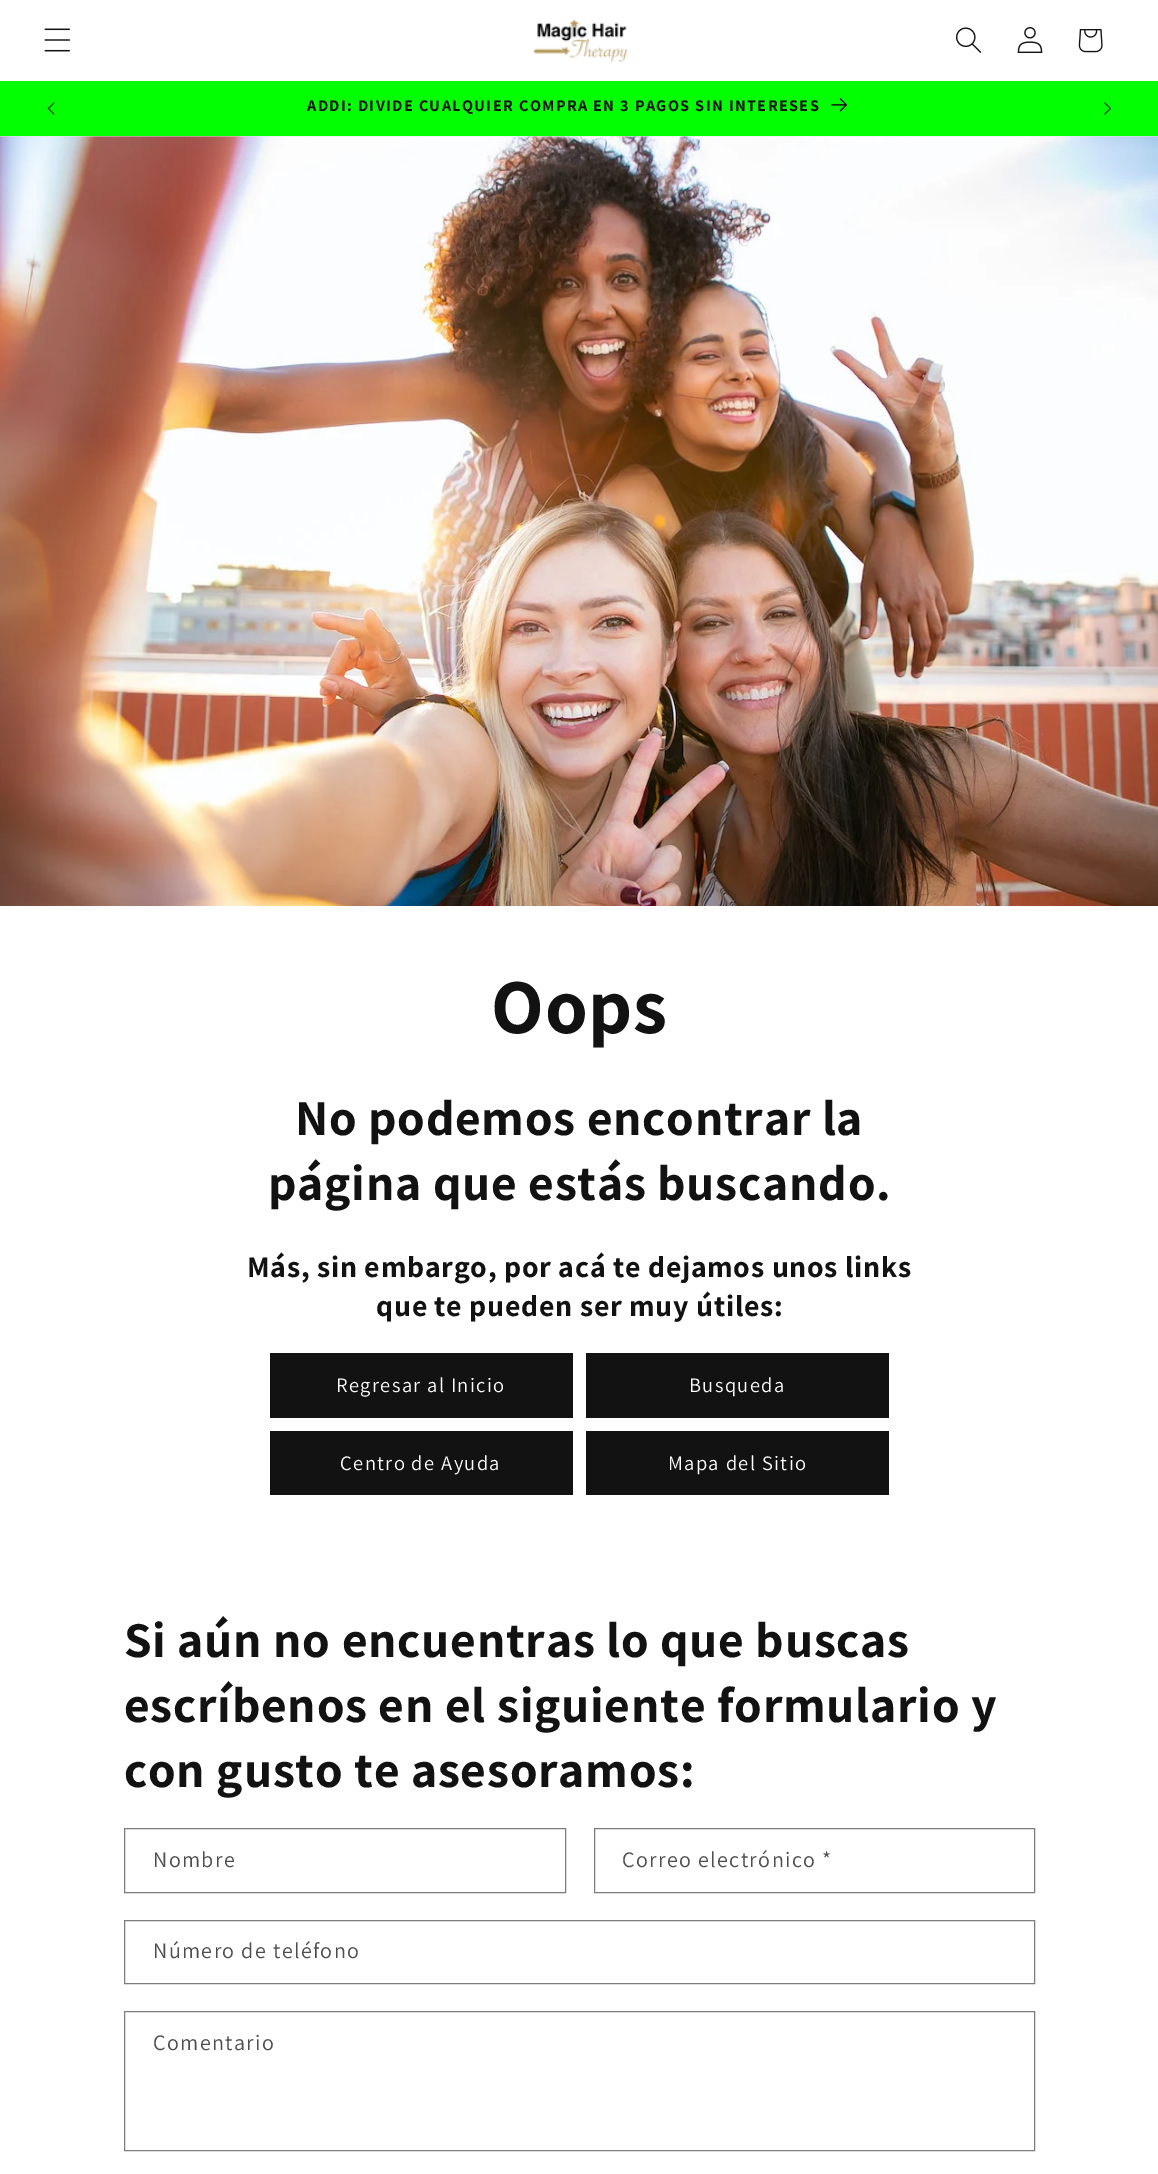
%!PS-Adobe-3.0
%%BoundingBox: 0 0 1158 2174
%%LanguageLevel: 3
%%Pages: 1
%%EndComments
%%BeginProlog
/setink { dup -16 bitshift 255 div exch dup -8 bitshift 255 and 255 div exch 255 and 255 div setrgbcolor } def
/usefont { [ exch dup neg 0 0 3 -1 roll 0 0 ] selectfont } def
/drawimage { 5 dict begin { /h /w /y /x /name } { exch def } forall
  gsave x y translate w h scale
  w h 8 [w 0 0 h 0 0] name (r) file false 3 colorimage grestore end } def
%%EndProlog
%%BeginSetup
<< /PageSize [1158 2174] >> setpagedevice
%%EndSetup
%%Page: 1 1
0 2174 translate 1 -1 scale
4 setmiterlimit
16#FFFFFF setink
0 0 1158 2174 rectfill
(img1.raw) 44 28 26 24 drawimage
(img2.raw) 533 19 95 44 drawimage
(img3.raw) 956 27 26 26 drawimage
(img4.raw) 1017 27 26 26 drawimage
(img5.raw) 1078 29 25 24 drawimage
16#02FF02 setink
0 81 1158 55 rectfill
(img6.raw) 47 102 8 13 drawimage
/Assistant-Bold 16.25 usefont
16#121212 setink
307 111 moveto 1.38 0 (ADDI: DIVIDE CUALQUIER COMPRA EN 3 PAGOS SIN INTERESES) ashow
(img7.raw) 831 98 16 14 drawimage
(img8.raw) 1104 102 7 13 drawimage
16#E8E8E8 setink
0 136 1158 1 rectfill
(img9.raw) 0 136 1158 770 drawimage
/Assistant-Bold 77.5 usefont
16#121212 setink
491 1033 moveto 0.75 0 (Oops) ashow
/Assistant-Bold 50 usefont
295 1135 moveto 0.75 0 (No podemos encontrar la) ashow
268 1200 moveto 0.75 0 (página que estás buscando.) ashow
/Assistant-Bold 30 usefont
247 1277 moveto 0.75 0 (Más, sin embargo, por acá te dejamos unos links) ashow
376 1316 moveto 0.75 0 (que te pueden ser muy útiles:) ashow
270 1353 303 65 rectfill
/Assistant-Regular 20.5 usefont
16#FFFFFF setink
336 1392 moveto 1.38 0 (Regresar al Inicio) ashow
16#121212 setink
586 1353 303 65 rectfill
16#FFFFFF setink
689 1392 moveto 1.38 0 (Busqueda) ashow
16#121212 setink
270 1431 303 64 rectfill
16#FFFFFF setink
340 1470 moveto 1.38 0 (Centro de Ayuda) ashow
16#121212 setink
586 1431 303 64 rectfill
16#FFFFFF setink
668 1470 moveto 1.38 0 (Mapa del Sitio) ashow
/Assistant-Bold 50 usefont
16#121212 setink
124 1657 moveto 0.75 0 (Si aún no encuentras lo que buscas) ashow
124 1722 moveto 0.75 0 (escríbenos en el siguiente formulario y) ashow
124 1787 moveto 0.75 0 (con gusto te asesoramos:) ashow
16#7D7D7D setink
124.5 1828.5 441 64 rectstroke
/Assistant-Regular 22 usefont
16#4D4D4D setink
153 1867 moveto 1.38 0 (Nombre) ashow
16#7D7D7D setink
594.5 1828.5 440 64 rectstroke
16#4D4D4D setink
622 1867 moveto 1.38 0 (Correo electrónico *) ashow
16#7D7D7D setink
124.5 1920.5 910 63 rectstroke
16#4D4D4D setink
153 1958 moveto 1.38 0 (Número de teléfono) ashow
16#7D7D7D setink
124.5 2011.5 910 139 rectstroke
16#4D4D4D setink
153 2050 moveto 1.38 0 (Comentario) ashow
showpage
%%EOF
